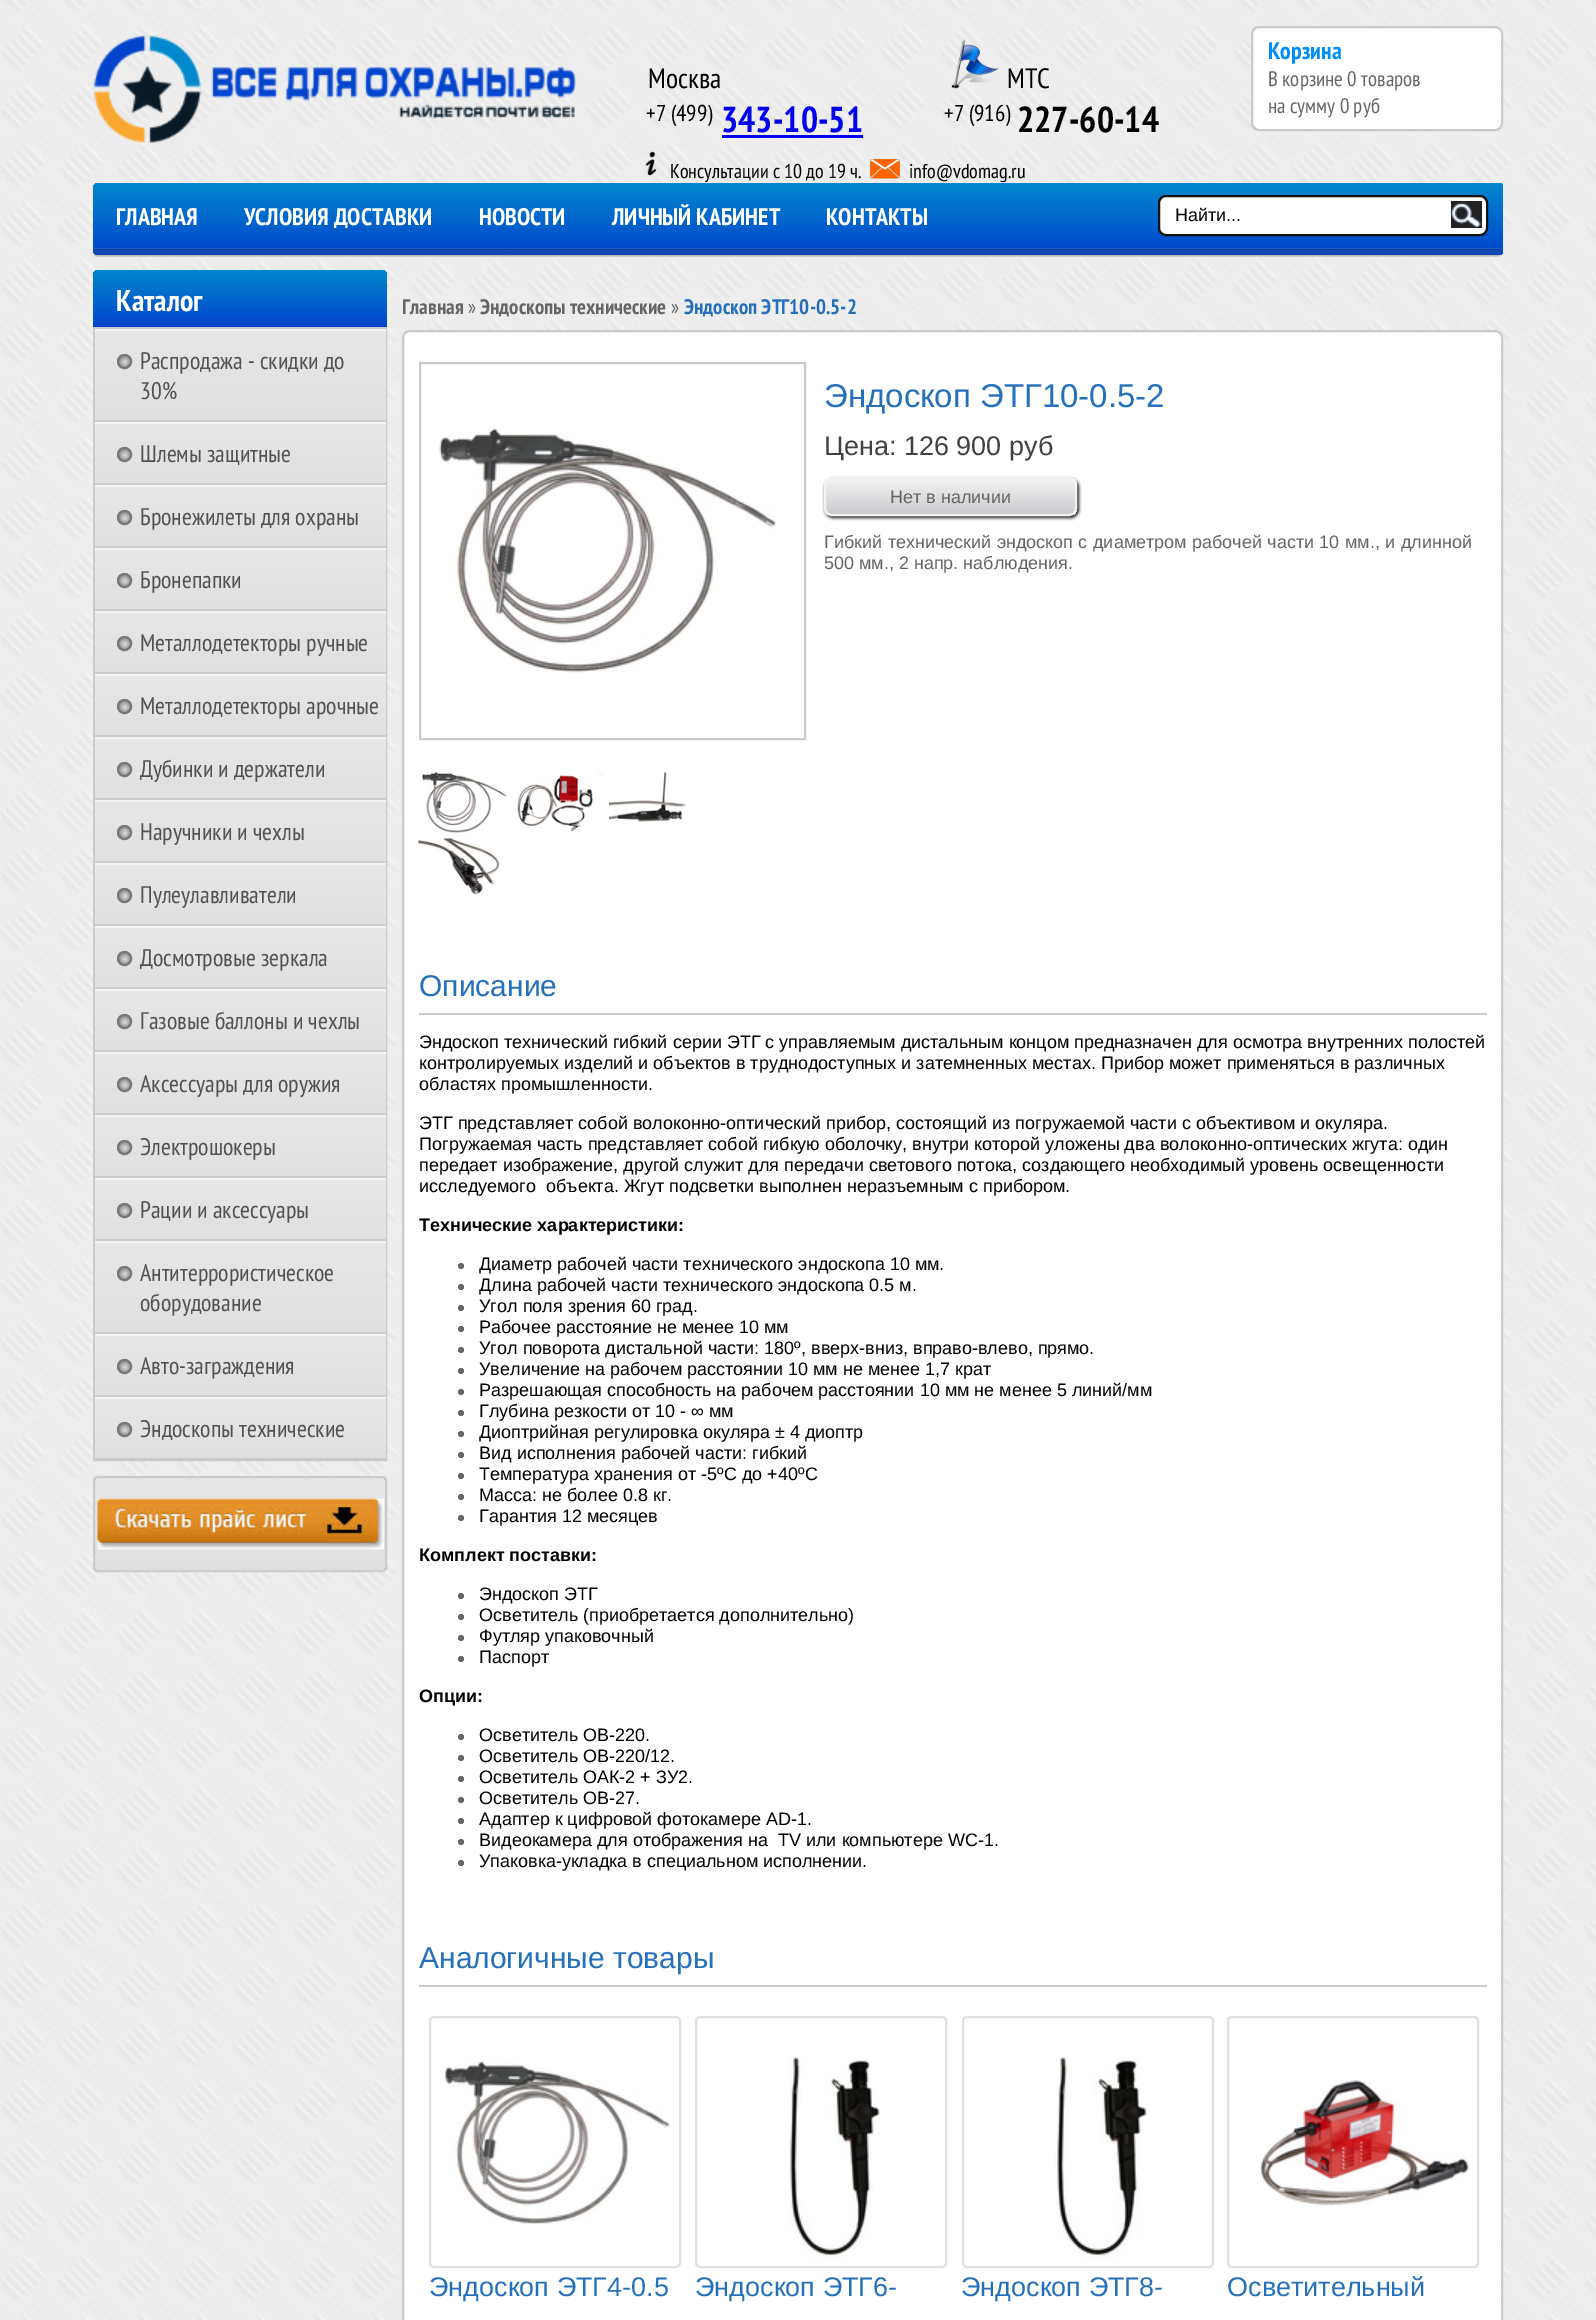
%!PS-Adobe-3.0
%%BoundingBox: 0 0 1596 2320
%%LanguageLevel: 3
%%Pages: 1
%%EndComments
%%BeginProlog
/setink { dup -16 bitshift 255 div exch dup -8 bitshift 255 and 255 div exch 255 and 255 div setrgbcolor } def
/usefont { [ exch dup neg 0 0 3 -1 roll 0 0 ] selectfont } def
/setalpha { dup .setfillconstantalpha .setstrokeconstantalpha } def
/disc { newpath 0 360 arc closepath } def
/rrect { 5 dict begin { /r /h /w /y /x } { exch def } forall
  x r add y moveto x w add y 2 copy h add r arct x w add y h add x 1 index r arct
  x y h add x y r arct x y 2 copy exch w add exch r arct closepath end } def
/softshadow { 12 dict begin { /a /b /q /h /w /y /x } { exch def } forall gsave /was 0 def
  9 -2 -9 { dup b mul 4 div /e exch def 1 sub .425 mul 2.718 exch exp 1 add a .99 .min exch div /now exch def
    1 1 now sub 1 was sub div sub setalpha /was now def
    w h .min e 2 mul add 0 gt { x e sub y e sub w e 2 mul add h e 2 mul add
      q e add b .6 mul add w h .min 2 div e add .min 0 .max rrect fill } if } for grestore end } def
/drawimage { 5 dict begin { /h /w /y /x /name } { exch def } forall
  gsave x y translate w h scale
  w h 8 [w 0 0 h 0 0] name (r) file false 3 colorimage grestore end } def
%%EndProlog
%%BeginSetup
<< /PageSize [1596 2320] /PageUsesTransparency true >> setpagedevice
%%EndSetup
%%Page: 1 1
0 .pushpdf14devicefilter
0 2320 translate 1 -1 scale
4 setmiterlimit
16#FFFFFF setink
0 0 1596 2320 rectfill
(img1.raw) 0 0 1596 2320 drawimage
(img2.raw) 93 35 483 108 drawimage
/PTSansNarrow-Regular 28 usefont
16#000000 setink
648 88 moveto (Москва) show
/PTSansNarrow-Regular 23 usefont
646 121 moveto (+7 \(499\)) show
/PTSansNarrow-Bold 36 usefont
16#0000EE setink
721 132 moveto (343-10-51) show
722 135 141 3 rectfill
(img3.raw) 951 38 48 51 drawimage
/PTSansNarrow-Regular 28 usefont
16#000000 setink
1007 88 moveto (МТС) show
/PTSansNarrow-Regular 23 usefont
944 121 moveto (+7 \(916\)) show
/PTSansNarrow-Bold 36 usefont
1017 132 moveto (227-60-14) show
(img4.raw) 645 151 12 25 drawimage
/PTSansNarrow-Regular 20 usefont
670 178 moveto (Консультации с 10 до 19 ч.) show
(img5.raw) 870 159 30 20 drawimage
909 178 moveto (info@vdomag.ru) show
16#FFFFFF setink
1252 27 250 103 7 rrect gsave fill grestore
16#CACACB setink
2 setlinewidth
stroke
/PTSansNarrow-Bold 24 usefont
16#008FFC setink
1268 59 moveto (Корзина) show
/PTSansNarrow-Regular 21 usefont
16#656565 setink
1268 86 moveto (В корзине 0 товаров) show
1268 113 moveto (на сумму 0 руб) show
gsave 93 183 1410 72 5 rrect clip newpath
<< /ShadingType 2 /ColorSpace /DeviceRGB /Coords [798 255 798 183] /Extend [true true] /Function << /FunctionType 2 /Domain [0 1] /C0 [0 0.267 0.8] /C1 [0 0.533 0.8] /N 1 >> >> shfill grestore
/PTSansNarrow-Bold 24 usefont
16#FFFFFF setink
[
    [(ГЛАВНАЯ) 116 225]
    [(УСЛОВИЯ ДОСТАВКИ) 244 225]
    [(НОВОСТИ) 479 225]
    [(ЛИЧНЫЙ КАБИНЕТ) 612 225]
    [(КОНТАКТЫ) 826 225]
] { aload pop moveto show } forall
gsave 1143 183 moveto 1498 183 lineto 1501 183 1503 185 1503 188 curveto 1503 250 lineto 1503 253 1501 255 1498 255 curveto 1143 255 lineto closepath clip newpath
<< /ShadingType 2 /ColorSpace /DeviceRGB /Coords [1323 255 1323 183] /Extend [true true] /Function << /FunctionType 2 /Domain [0 1] /C0 [0 0.267 0.8] /C1 [0 0.533 0.8] /N 1 >> >> shfill grestore
16#225DC5 setink
93 248 1409 1 rectfill
0.2 setalpha
16#555555 setink
93 249 moveto 1502 249 lineto 1502 252 lineto 1502 255 1500 257 1497 257 curveto 98 257 lineto 95 257 93 255 93 252 curveto closepath fill
1 setalpha
16#033EA7 setink
93 249 moveto 93 250 lineto 1502 250 lineto 1502 249 lineto closepath 93 253 moveto 93 252 lineto closepath eofill
0.2 setalpha
16#555555 setink
93 253 moveto 94 254 95 255 98 255 curveto 1497 255 lineto 1498 255 1501 254 1502 253 curveto 1501 255 1498 256 1497 256 curveto 98 256 lineto 95 256 94 254 93 253 curveto closepath fill
1 setalpha
16#FFFFFF setink
1159 196 328 39 7 rrect gsave fill grestore
16#111111 setink
stroke
/LiberationSans-Regular 18 usefont
16#000000 setink
1175 221 moveto (Найти...) show
16#222222 setink
1451 201 31 27 rectfill
(img6.raw) 1450 202 32 26 drawimage
gsave 99 270 moveto 381 270 lineto 384.5 270 387 272.5 387 276 curveto 387 327 lineto 93 327 lineto 93 276 lineto 93 272.5 95.5 270 99 270 curveto closepath clip newpath
<< /ShadingType 2 /ColorSpace /DeviceRGB /Coords [240 327 240 270] /Extend [true true] /Function << /FunctionType 2 /Domain [0 1] /C0 [0 0.267 0.8] /C1 [0 0.533 0.8] /N 1 >> >> shfill grestore
/PTSansNarrow-Bold 30 usefont
16#FFFFFF setink
116 311 moveto (Каталог) show
16#CACACB setink
94 328 292 1132 rectstroke
gsave 95 331 moveto 386 331 lineto 386 420 lineto 95 420 lineto closepath clip newpath
<< /ShadingType 2 /ColorSpace /DeviceRGB /Coords [240 420 240 330] /Extend [true true] /Function << /FunctionType 2 /Domain [0 1] /C0 [0.882 0.878 0.878] /C1 [0.906 0.906 0.906] /N 1 >> >> shfill grestore
16#F3F3F3 setink
95 329 291 2 rectfill
16#CCCCCC setink
95 420 291 2 rectfill
(img7.raw) 117 354 15 15 drawimage
16#777777 setink
124.5 361.5 6.5 disc stroke
/PTSansNarrow-Regular 24 usefont
16#515151 setink
140 369 moveto (Распродажа - скидки до) show
140 399 moveto (30%) show
gsave 95 424 moveto 386 424 lineto 386 483 lineto 95 483 lineto closepath clip newpath
<< /ShadingType 2 /ColorSpace /DeviceRGB /Coords [240 483 240 423] /Extend [true true] /Function << /FunctionType 2 /Domain [0 1] /C0 [0.882 0.878 0.878] /C1 [0.906 0.906 0.906] /N 1 >> >> shfill grestore
16#F3F3F3 setink
95 422 291 2 rectfill
16#CCCCCC setink
95 483 291 2 rectfill
(img8.raw) 117 447 15 15 drawimage
16#777777 setink
124.5 454.5 6.5 disc stroke
16#515151 setink
140 462 moveto (Шлемы защитные) show
gsave 95 487 moveto 386 487 lineto 386 546 lineto 95 546 lineto closepath clip newpath
<< /ShadingType 2 /ColorSpace /DeviceRGB /Coords [240 546 240 486] /Extend [true true] /Function << /FunctionType 2 /Domain [0 1] /C0 [0.882 0.878 0.878] /C1 [0.906 0.906 0.906] /N 1 >> >> shfill grestore
16#F3F3F3 setink
95 485 291 2 rectfill
16#CCCCCC setink
95 546 291 2 rectfill
(img8.raw) 117 510 15 15 drawimage
16#777777 setink
124.5 517.5 6.5 disc stroke
16#515151 setink
140 525 moveto (Бронежилеты для охраны) show
gsave 95 550 moveto 386 550 lineto 386 609 lineto 95 609 lineto closepath clip newpath
<< /ShadingType 2 /ColorSpace /DeviceRGB /Coords [240 609 240 549] /Extend [true true] /Function << /FunctionType 2 /Domain [0 1] /C0 [0.882 0.878 0.878] /C1 [0.906 0.906 0.906] /N 1 >> >> shfill grestore
16#F3F3F3 setink
95 548 291 2 rectfill
16#CCCCCC setink
95 609 291 2 rectfill
(img8.raw) 117 573 15 15 drawimage
16#777777 setink
124.5 580.5 6.5 disc stroke
16#515151 setink
140 588 moveto (Бронепапки) show
gsave 95 613 moveto 386 613 lineto 386 672 lineto 95 672 lineto closepath clip newpath
<< /ShadingType 2 /ColorSpace /DeviceRGB /Coords [240 672 240 612] /Extend [true true] /Function << /FunctionType 2 /Domain [0 1] /C0 [0.882 0.878 0.878] /C1 [0.906 0.906 0.906] /N 1 >> >> shfill grestore
16#F3F3F3 setink
95 611 291 2 rectfill
16#CCCCCC setink
95 672 291 2 rectfill
(img8.raw) 117 636 15 15 drawimage
16#777777 setink
124.5 643.5 6.5 disc stroke
16#515151 setink
140 651 moveto (Металлодетекторы ручные) show
gsave 95 676 moveto 386 676 lineto 386 735 lineto 95 735 lineto closepath clip newpath
<< /ShadingType 2 /ColorSpace /DeviceRGB /Coords [240 735 240 675] /Extend [true true] /Function << /FunctionType 2 /Domain [0 1] /C0 [0.882 0.878 0.878] /C1 [0.906 0.906 0.906] /N 1 >> >> shfill grestore
16#F3F3F3 setink
95 674 291 2 rectfill
16#CCCCCC setink
95 735 291 2 rectfill
(img8.raw) 117 699 15 15 drawimage
16#777777 setink
124.5 706.5 6.5 disc stroke
16#515151 setink
140 714 moveto (Металлодетекторы арочные) show
gsave 95 739 moveto 386 739 lineto 386 798 lineto 95 798 lineto closepath clip newpath
<< /ShadingType 2 /ColorSpace /DeviceRGB /Coords [240 798 240 738] /Extend [true true] /Function << /FunctionType 2 /Domain [0 1] /C0 [0.882 0.878 0.878] /C1 [0.906 0.906 0.906] /N 1 >> >> shfill grestore
16#F3F3F3 setink
95 737 291 2 rectfill
16#CCCCCC setink
95 798 291 2 rectfill
(img8.raw) 117 762 15 15 drawimage
16#777777 setink
124.5 769.5 6.5 disc stroke
16#515151 setink
140 777 moveto (Дубинки и держатели) show
gsave 95 802 moveto 386 802 lineto 386 861 lineto 95 861 lineto closepath clip newpath
<< /ShadingType 2 /ColorSpace /DeviceRGB /Coords [240 861 240 801] /Extend [true true] /Function << /FunctionType 2 /Domain [0 1] /C0 [0.882 0.878 0.878] /C1 [0.906 0.906 0.906] /N 1 >> >> shfill grestore
16#F3F3F3 setink
95 800 291 2 rectfill
16#CCCCCC setink
95 861 291 2 rectfill
(img8.raw) 117 825 15 15 drawimage
16#777777 setink
124.5 832.5 6.5 disc stroke
16#515151 setink
140 840 moveto (Наручники и чехлы) show
gsave 95 865 moveto 386 865 lineto 386 924 lineto 95 924 lineto closepath clip newpath
<< /ShadingType 2 /ColorSpace /DeviceRGB /Coords [240 924 240 864] /Extend [true true] /Function << /FunctionType 2 /Domain [0 1] /C0 [0.882 0.878 0.878] /C1 [0.906 0.906 0.906] /N 1 >> >> shfill grestore
16#F3F3F3 setink
95 863 291 2 rectfill
16#CCCCCC setink
95 924 291 2 rectfill
(img8.raw) 117 888 15 15 drawimage
16#777777 setink
124.5 895.5 6.5 disc stroke
16#515151 setink
140 903 moveto (Пулеулавливатели) show
gsave 95 928 moveto 386 928 lineto 386 987 lineto 95 987 lineto closepath clip newpath
<< /ShadingType 2 /ColorSpace /DeviceRGB /Coords [240 987 240 927] /Extend [true true] /Function << /FunctionType 2 /Domain [0 1] /C0 [0.882 0.878 0.878] /C1 [0.906 0.906 0.906] /N 1 >> >> shfill grestore
16#F3F3F3 setink
95 926 291 2 rectfill
16#CCCCCC setink
95 987 291 2 rectfill
(img8.raw) 117 951 15 15 drawimage
16#777777 setink
124.5 958.5 6.5 disc stroke
16#515151 setink
140 966 moveto (Досмотровые зеркала) show
gsave 95 991 moveto 386 991 lineto 386 1050 lineto 95 1050 lineto closepath clip newpath
<< /ShadingType 2 /ColorSpace /DeviceRGB /Coords [240 1050 240 990] /Extend [true true] /Function << /FunctionType 2 /Domain [0 1] /C0 [0.882 0.878 0.878] /C1 [0.906 0.906 0.906] /N 1 >> >> shfill grestore
16#F3F3F3 setink
95 989 291 2 rectfill
16#CCCCCC setink
95 1050 291 2 rectfill
(img8.raw) 117 1014 15 15 drawimage
16#777777 setink
124.5 1021.5 6.5 disc stroke
16#515151 setink
140 1029 moveto (Газовые баллоны и чехлы) show
gsave 95 1054 moveto 386 1054 lineto 386 1113 lineto 95 1113 lineto closepath clip newpath
<< /ShadingType 2 /ColorSpace /DeviceRGB /Coords [240 1113 240 1053] /Extend [true true] /Function << /FunctionType 2 /Domain [0 1] /C0 [0.882 0.878 0.878] /C1 [0.906 0.906 0.906] /N 1 >> >> shfill grestore
16#F3F3F3 setink
95 1052 291 2 rectfill
16#CCCCCC setink
95 1113 291 2 rectfill
(img8.raw) 117 1077 15 15 drawimage
16#777777 setink
124.5 1084.5 6.5 disc stroke
16#515151 setink
140 1092 moveto (Аксессуары для оружия) show
gsave 95 1117 moveto 386 1117 lineto 386 1176 lineto 95 1176 lineto closepath clip newpath
<< /ShadingType 2 /ColorSpace /DeviceRGB /Coords [240 1176 240 1116] /Extend [true true] /Function << /FunctionType 2 /Domain [0 1] /C0 [0.882 0.878 0.878] /C1 [0.906 0.906 0.906] /N 1 >> >> shfill grestore
16#F3F3F3 setink
95 1115 291 2 rectfill
16#CCCCCC setink
95 1176 291 2 rectfill
(img8.raw) 117 1140 15 15 drawimage
16#777777 setink
124.5 1147.5 6.5 disc stroke
16#515151 setink
140 1155 moveto (Электрошокеры) show
gsave 95 1180 moveto 386 1180 lineto 386 1239 lineto 95 1239 lineto closepath clip newpath
<< /ShadingType 2 /ColorSpace /DeviceRGB /Coords [240 1239 240 1179] /Extend [true true] /Function << /FunctionType 2 /Domain [0 1] /C0 [0.882 0.878 0.878] /C1 [0.906 0.906 0.906] /N 1 >> >> shfill grestore
16#F3F3F3 setink
95 1178 291 2 rectfill
16#CCCCCC setink
95 1239 291 2 rectfill
(img8.raw) 117 1203 15 15 drawimage
16#777777 setink
124.5 1210.5 6.5 disc stroke
16#515151 setink
140 1218 moveto (Рации и аксессуары) show
gsave 95 1243 moveto 386 1243 lineto 386 1332 lineto 95 1332 lineto closepath clip newpath
<< /ShadingType 2 /ColorSpace /DeviceRGB /Coords [240 1332 240 1242] /Extend [true true] /Function << /FunctionType 2 /Domain [0 1] /C0 [0.882 0.878 0.878] /C1 [0.906 0.906 0.906] /N 1 >> >> shfill grestore
16#F3F3F3 setink
95 1241 291 2 rectfill
16#CCCCCC setink
95 1332 291 2 rectfill
(img7.raw) 117 1266 15 15 drawimage
16#777777 setink
124.5 1273.5 6.5 disc stroke
16#515151 setink
140 1281 moveto (Антитеррористическое) show
140 1311 moveto (оборудование) show
gsave 95 1336 moveto 386 1336 lineto 386 1395 lineto 95 1395 lineto closepath clip newpath
<< /ShadingType 2 /ColorSpace /DeviceRGB /Coords [240 1395 240 1335] /Extend [true true] /Function << /FunctionType 2 /Domain [0 1] /C0 [0.882 0.878 0.878] /C1 [0.906 0.906 0.906] /N 1 >> >> shfill grestore
16#F3F3F3 setink
95 1334 291 2 rectfill
16#CCCCCC setink
95 1395 291 2 rectfill
(img8.raw) 117 1359 15 15 drawimage
16#777777 setink
124.5 1366.5 6.5 disc stroke
16#515151 setink
140 1374 moveto (Авто-заграждения) show
gsave 95 1399 moveto 386 1399 lineto 386 1458 lineto 95 1458 lineto closepath clip newpath
<< /ShadingType 2 /ColorSpace /DeviceRGB /Coords [240 1458 240 1398] /Extend [true true] /Function << /FunctionType 2 /Domain [0 1] /C0 [0.882 0.878 0.878] /C1 [0.906 0.906 0.906] /N 1 >> >> shfill grestore
16#F3F3F3 setink
95 1397 291 2 rectfill
16#CCCCCC setink
95 1458 291 1 rectfill
(img8.raw) 117 1422 15 15 drawimage
16#777777 setink
124.5 1429.5 6.5 disc stroke
16#515151 setink
140 1437 moveto (Эндоскопы технические) show
gsave
93 1476 294 96 5 rrect clip newpath
gsave 93 1478 moveto 387 1478 lineto 387 1571 lineto 93 1571 lineto closepath clip newpath
<< /ShadingType 2 /ColorSpace /DeviceRGB /Coords [240 1571 240 1478] /Extend [true true] /Function << /FunctionType 2 /Domain [0 1] /C0 [0.882 0.878 0.878] /C1 [0.906 0.906 0.906] /N 1 >> >> shfill grestore
grestore
16#CACACB setink
94 1477 292 94 4 rrect stroke
(img9.raw) 97 1498 287 52 drawimage
/PTSansNarrow-Bold 21 usefont
16#656565 setink
402 314 moveto (Главная) show
/PTSansNarrow-Regular 21 usefont
468 314 moveto (») show
/PTSansNarrow-Bold 21 usefont
480 314 moveto (Эндоскопы технические) show
/PTSansNarrow-Regular 21 usefont
671 314 moveto (») show
/PTSansNarrow-Bold 21 usefont
16#2570BB setink
684 314 moveto (Эндоскоп ЭТГ10-0.5-2) show
16#FFFFFF setink
403 331 1099 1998 7 rrect gsave fill grestore
16#CACACB setink
stroke
16#CACACA setink
420 363 385 376 rectstroke
(img10.raw) 439 428 337 245 drawimage
(img11.raw) 422 771 85 62 drawimage
(img12.raw) 517 771 86 61 drawimage
(img13.raw) 609 772 77 50 drawimage
(img14.raw) 418 838 82 57 drawimage
/LiberationSans-Regular 33 usefont
16#2570BB setink
824 407 moveto (Эндоскоп ЭТГ10-0.5-2) show
/LiberationSans-Regular 27 usefont
16#414141 setink
824 455 moveto (Цена: 126 900 руб) show
16#222222 setink
825 479 254 39 8 1.5 1 softshadow
gsave
824 477 253 39 8 rrect clip newpath
gsave 824 479 moveto 1077 479 lineto 1077 515 lineto 824 515 lineto closepath clip newpath
<< /ShadingType 2 /ColorSpace /DeviceRGB /Coords [950 515 950 479] /Extend [true true] /Function << /FunctionType 2 /Domain [0 1] /C0 [0.792 0.792 0.808] /C1 [0.953 0.953 0.953] /N 1 >> >> shfill grestore
grestore
16#F2F3F3 setink
825 478 251 37 7 rrect stroke
/LiberationSans-Regular 18 usefont
16#656565 setink
890 503 moveto (Нет в наличии) show
824 548 moveto 0.5 0 32 (Гибкий технический эндоскоп c диаметром рабочей части 10 мм., и длинной) widthshow
824 569 moveto (500 мм., 2 напр. наблюдения.) show
16#CACACB setink
419 1013 1068 2 rectfill
/LiberationSans-Regular 30 usefont
16#2570BB setink
419 996 moveto (Описание) show
/LiberationSans-Regular 18 usefont
16#000000 setink
[
    [(Эндоскоп технический гибкий серии ЭТГ с управляемым дистальным концом предназначен для осмотра внутренних полостей) 419 1048]
    [(контролируемых изделий и объектов в труднодоступных и затемненных местах. Прибор может применяться в различных) 419 1069]
    [(областях промышленности.) 419 1090]
    [(ЭТГ представляет собой волоконно-оптический прибор, состоящий из погружаемой части с объективом и окуляра.) 419 1129]
    [(Погружаемая часть представляет собой гибкую оболочку, внутри которой уложены два волоконно-оптических жгута: один) 419 1150]
    [(передает изображение, другой служит для передачи светового потока, создающего необходимый уровень освещенности) 419 1171]
    [(исследуемого  объекта. Жгут подсветки выполнен неразъемным с прибором.) 419 1192]
] { aload pop moveto show } forall
/LiberationSans-Bold 18 usefont
419 1231 moveto (Технические характеристики:) show
16#656565 setink
461 1266 3 disc fill
/LiberationSans-Regular 18 usefont
16#000000 setink
479 1270 moveto (Диаметр рабочей части технического эндоскопа 10 мм.) show
16#656565 setink
461 1287 3 disc fill
16#000000 setink
479 1291 moveto (Длина рабочей части технического эндоскопа 0.5 м.) show
16#656565 setink
461 1308 3 disc fill
16#000000 setink
479 1312 moveto (Угол поля зрения 60 град.) show
16#656565 setink
461 1329 3 disc fill
16#000000 setink
479 1333 moveto (Рабочее расстояние не менее 10 мм) show
16#656565 setink
461 1350 3 disc fill
16#000000 setink
479 1354 moveto (Угол поворота дистальной части: 180º, вверх-вниз, вправо-влево, прямо.) show
16#656565 setink
461 1371 3 disc fill
16#000000 setink
479 1375 moveto (Увеличение на рабочем расстоянии 10 мм не менее 1,7 крат) show
16#656565 setink
461 1392 3 disc fill
16#000000 setink
479 1396 moveto (Разрешающая способность на рабочем расстоянии 10 мм не менее 5 линий/мм) show
16#656565 setink
461 1413 3 disc fill
16#000000 setink
479 1417 moveto (Глубина резкости от 10 - ∞ мм) show
16#656565 setink
461 1434 3 disc fill
16#000000 setink
479 1438 moveto (Диоптрийная регулировка окуляра ± 4 диоптр) show
16#656565 setink
461 1455 3 disc fill
16#000000 setink
479 1459 moveto (Вид исполнения рабочей части: гибкий) show
16#656565 setink
461 1476 3 disc fill
16#000000 setink
479 1480 moveto (Температура хранения от -5ºС до +40ºС) show
16#656565 setink
461 1497 3 disc fill
16#000000 setink
479 1501 moveto (Масса: не более 0.8 кг.) show
16#656565 setink
461 1518 3 disc fill
16#000000 setink
479 1522 moveto (Гарантия 12 месяцев) show
/LiberationSans-Bold 18 usefont
419 1561 moveto (Комплект поставки:) show
16#656565 setink
461 1596 3 disc fill
/LiberationSans-Regular 18 usefont
16#000000 setink
479 1600 moveto (Эндоскоп ЭТГ) show
16#656565 setink
461 1617 3 disc fill
16#000000 setink
479 1621 moveto (Осветитель \(приобретается дополнительно\)) show
16#656565 setink
461 1638 3 disc fill
16#000000 setink
479 1642 moveto (Футляр упаковочный) show
16#656565 setink
461 1659 3 disc fill
16#000000 setink
479 1663 moveto (Паспорт) show
/LiberationSans-Bold 18 usefont
419 1702 moveto (Опции:) show
16#656565 setink
461 1737 3 disc fill
/LiberationSans-Regular 18 usefont
16#000000 setink
479 1741 moveto (Осветитель ОВ-220.) show
16#656565 setink
461 1758 3 disc fill
16#000000 setink
479 1762 moveto (Осветитель ОВ-220/12.) show
16#656565 setink
461 1779 3 disc fill
16#000000 setink
479 1783 moveto (Осветитель ОАК-2 + ЗУ2.) show
16#656565 setink
461 1800 3 disc fill
16#000000 setink
479 1804 moveto (Осветитель ОВ-27.) show
16#656565 setink
461 1821 3 disc fill
16#000000 setink
479 1825 moveto (Адаптер к цифровой фотокамере АD-1.) show
16#656565 setink
461 1842 3 disc fill
16#000000 setink
479 1846 moveto (Видеокамера для отображения на  TV или компьютере WC-1.) show
16#656565 setink
461 1863 3 disc fill
16#000000 setink
479 1867 moveto (Упаковка-укладка в специальном исполнении.) show
16#CACACB setink
419 1985 1068 2 rectfill
/LiberationSans-Regular 30 usefont
16#2570BB setink
419 1968 moveto (Аналогичные товары) show
(img15.raw) 444 2061 226 164 drawimage
16#E0E0E0 setink
430 2017 250 250 4 rrect stroke
/LiberationSans-Regular 27 usefont
16#2570BB setink
429 2296 moveto (Эндоскоп ЭТГ4-0.5) show
(img16.raw) 788 2057 92 205 drawimage
16#E0E0E0 setink
696 2017 250 250 4 rrect stroke
16#2570BB setink
695 2296 moveto (Эндоскоп ЭТГ6-) show
(img17.raw) 1055 2057 92 205 drawimage
16#E0E0E0 setink
963 2017 250 250 4 rrect stroke
16#2570BB setink
961 2296 moveto (Эндоскоп ЭТГ8-) show
(img18.raw) 1260 2080 209 126 drawimage
16#E0E0E0 setink
1228 2017 250 250 4 rrect stroke
16#2570BB setink
1227 2296 moveto (Осветительный) show
.poppdf14devicefilter showpage
%%EOF
